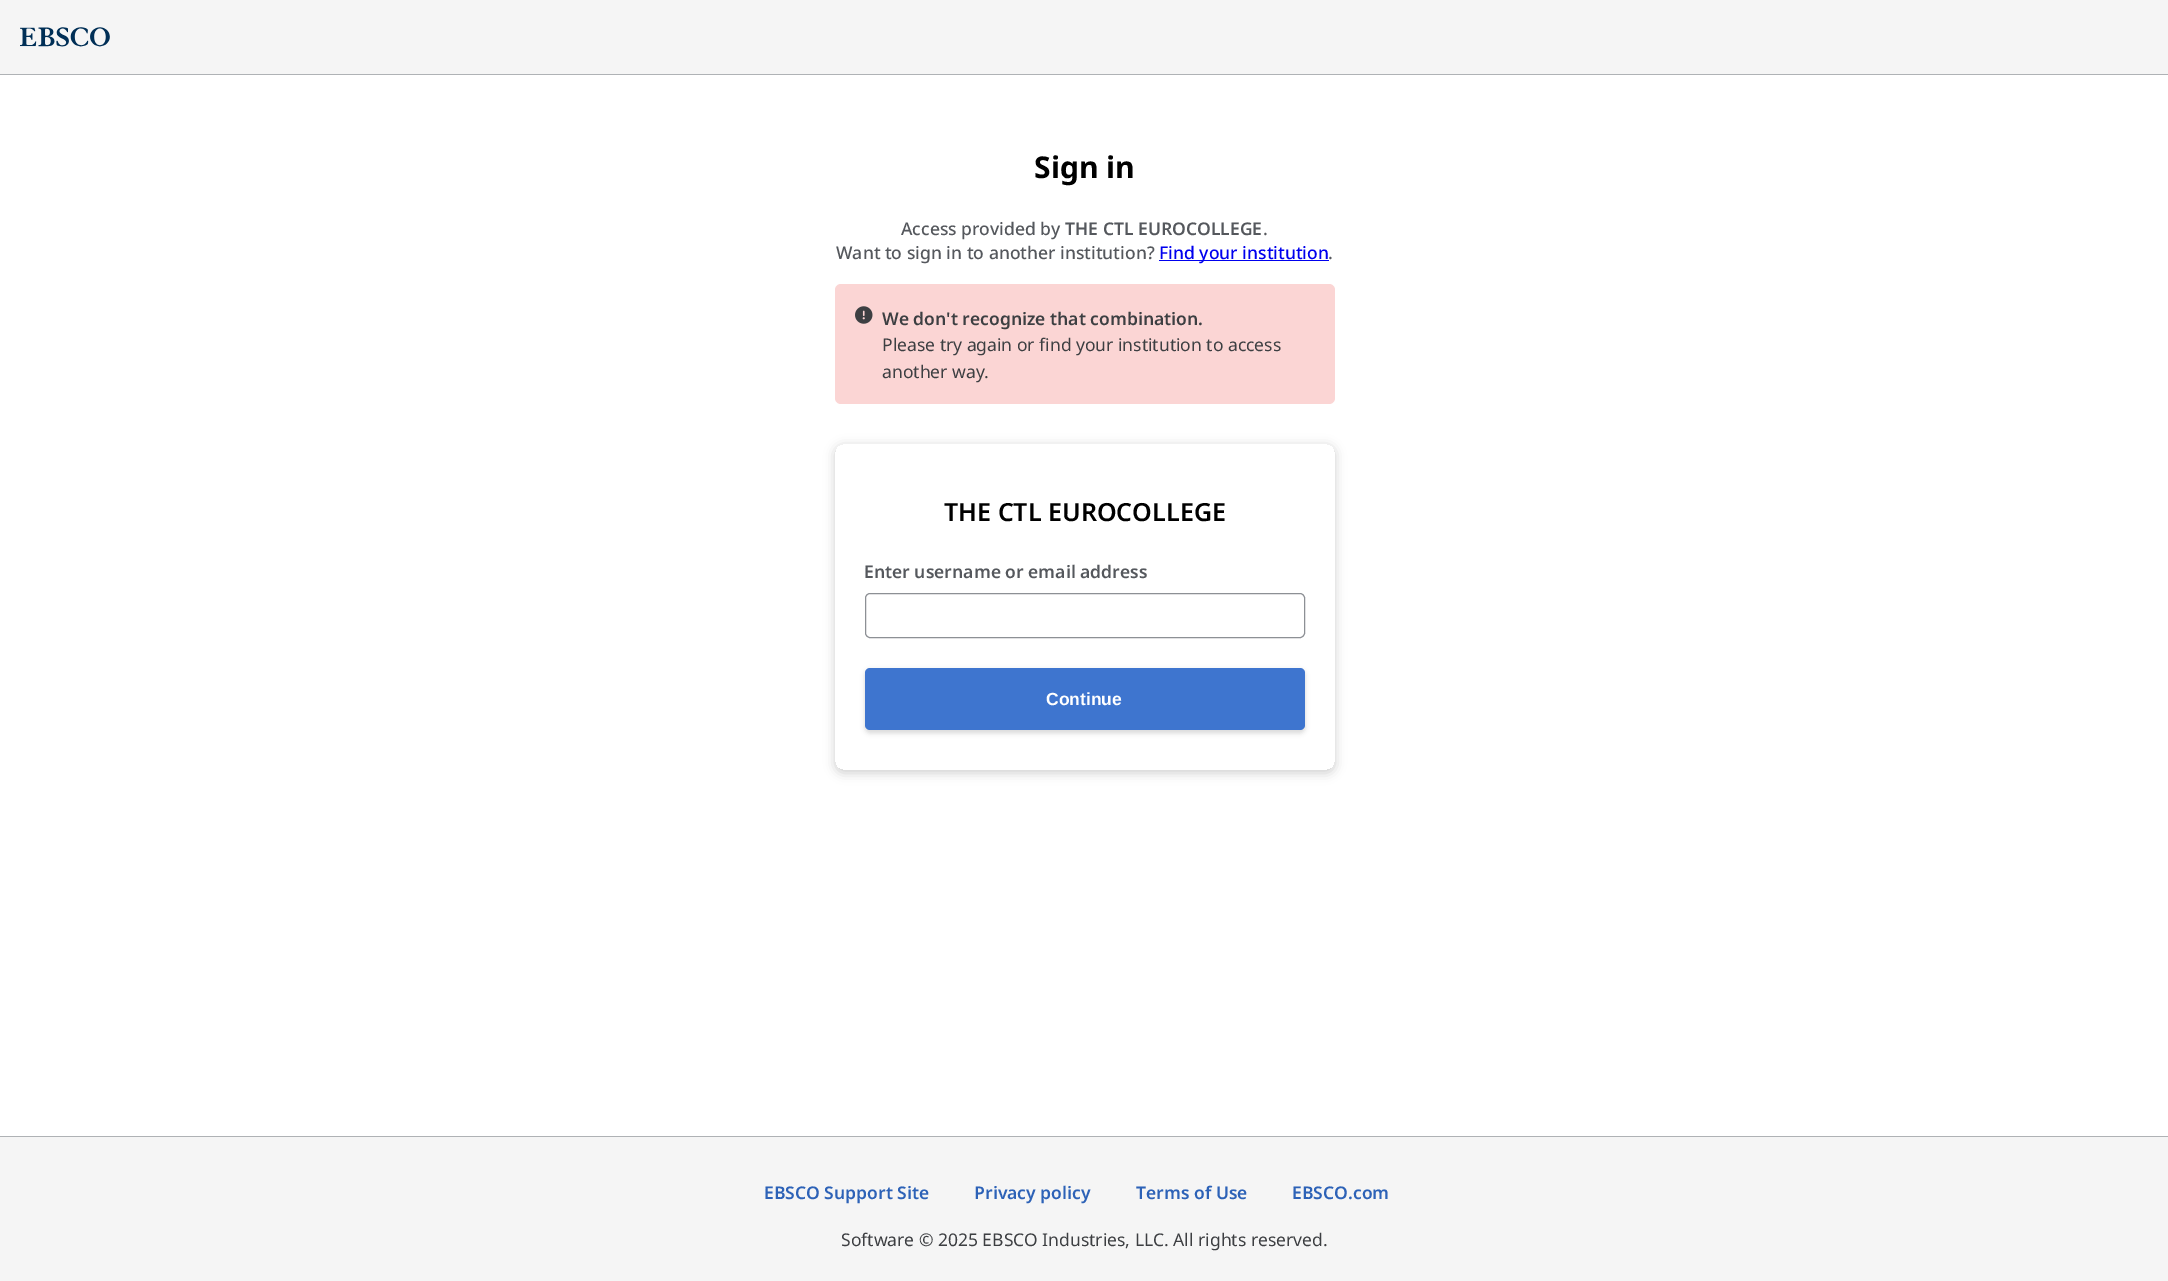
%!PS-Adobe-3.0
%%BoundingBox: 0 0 2168 1281
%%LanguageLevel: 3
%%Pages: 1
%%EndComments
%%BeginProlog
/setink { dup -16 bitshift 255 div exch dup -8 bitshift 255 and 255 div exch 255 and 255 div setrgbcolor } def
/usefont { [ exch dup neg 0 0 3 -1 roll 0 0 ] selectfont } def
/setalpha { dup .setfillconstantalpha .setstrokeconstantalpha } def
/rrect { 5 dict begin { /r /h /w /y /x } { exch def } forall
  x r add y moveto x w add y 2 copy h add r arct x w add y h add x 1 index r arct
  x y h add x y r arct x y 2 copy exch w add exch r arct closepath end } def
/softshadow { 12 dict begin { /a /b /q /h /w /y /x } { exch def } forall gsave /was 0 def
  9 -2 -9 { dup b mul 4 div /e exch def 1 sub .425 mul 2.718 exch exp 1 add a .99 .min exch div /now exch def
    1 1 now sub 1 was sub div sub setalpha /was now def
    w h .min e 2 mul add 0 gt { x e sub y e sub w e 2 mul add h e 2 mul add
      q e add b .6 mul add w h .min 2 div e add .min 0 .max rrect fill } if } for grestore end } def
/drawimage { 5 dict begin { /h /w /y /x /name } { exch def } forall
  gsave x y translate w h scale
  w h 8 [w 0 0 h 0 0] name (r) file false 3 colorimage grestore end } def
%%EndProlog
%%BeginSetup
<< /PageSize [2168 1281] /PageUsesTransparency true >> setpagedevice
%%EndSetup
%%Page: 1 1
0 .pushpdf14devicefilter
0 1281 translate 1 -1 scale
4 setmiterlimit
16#FFFFFF setink
0 0 2168 1281 rectfill
16#F5F5F5 setink
0 0 2168 74 rectfill
16#AFB2B5 setink
0 74 2168 1 rectfill
(img1.raw) 20 27 90 20 drawimage
/NotoSans-Bold 30 usefont
16#000000 setink
1034 178 moveto (Sign in) show
/NotoSans-Medium 17.5 usefont
16#55585D setink
901 235 moveto (Access provided by) show
/NotoSans-SemiBold 17.5 usefont
1065 235 moveto (THE CTL EUROCOLLEGE) show
/NotoSans-Medium 17.5 usefont
1263 235 moveto (.) show
836 259 moveto (Want to sign in to another institution?) show
16#0000EE setink
1159 260 170 1 rectfill
1159 259 moveto (Find your institution) show
16#55585D setink
1328 259 moveto (.) show
16#FBD5D4 setink
835 284 500 120 6 rrect fill
(img2.raw) 855 306 18 18 drawimage
/NotoSans-SemiBold 17.5 usefont
16#3D3F42 setink
882 325 moveto (We don't recognize that combination.) show
/NotoSans-Regular 17.5 usefont
882 351 moveto (Please try again or find your institution to access) show
882 378 moveto (another way.) show
gsave
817 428 moveto 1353 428 lineto 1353 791 lineto 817 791 lineto closepath 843 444 moveto 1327 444 lineto 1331.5 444 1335 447.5 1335 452 curveto 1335 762 lineto 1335 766.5 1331.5 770 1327 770 curveto 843 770 lineto 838.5 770 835 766.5 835 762 curveto 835 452 lineto 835 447.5 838.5 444 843 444 curveto closepath eoclip newpath
16#A0A0A0 setink
835 446 500 327 8 5.5 0.5 softshadow
grestore
/NotoSans-SemiBold 25 usefont
16#000000 setink
944 521 moveto (THE CTL EUROCOLLEGE) show
/NotoSans-SemiBold 17.5 usefont
16#55585D setink
864 578 moveto (Enter username or email address) show
16#8D9095 setink
865.5 593.5 439 44 4.5 rrect stroke
16#000000 setink
865 670 440 63 5 2.5 0.15 softshadow
16#3E75CF setink
865 668 440 62 5 rrect fill
/LiberationSans-Bold 17.5 usefont
16#FFFFFF setink
1046 705 moveto (Continue) show
16#F5F5F5 setink
0 1137 2168 144 rectfill
16#AFB2B5 setink
0 1136 2168 1 rectfill
/NotoSans-SemiBold 17.5 usefont
16#2D62B7 setink
[
    [(EBSCO Support Site) 764 1199]
    [(Privacy policy) 974 1199]
    [(Terms of Use) 1136 1199]
    [(EBSCO.com) 1292 1199]
] { aload pop moveto show } forall
/NotoSans-Regular 17.5 usefont
16#3D3F42 setink
841 1246 moveto (Software © 2025 EBSCO Industries, LLC. All rights reserved.) show
.poppdf14devicefilter showpage
%%EOF
